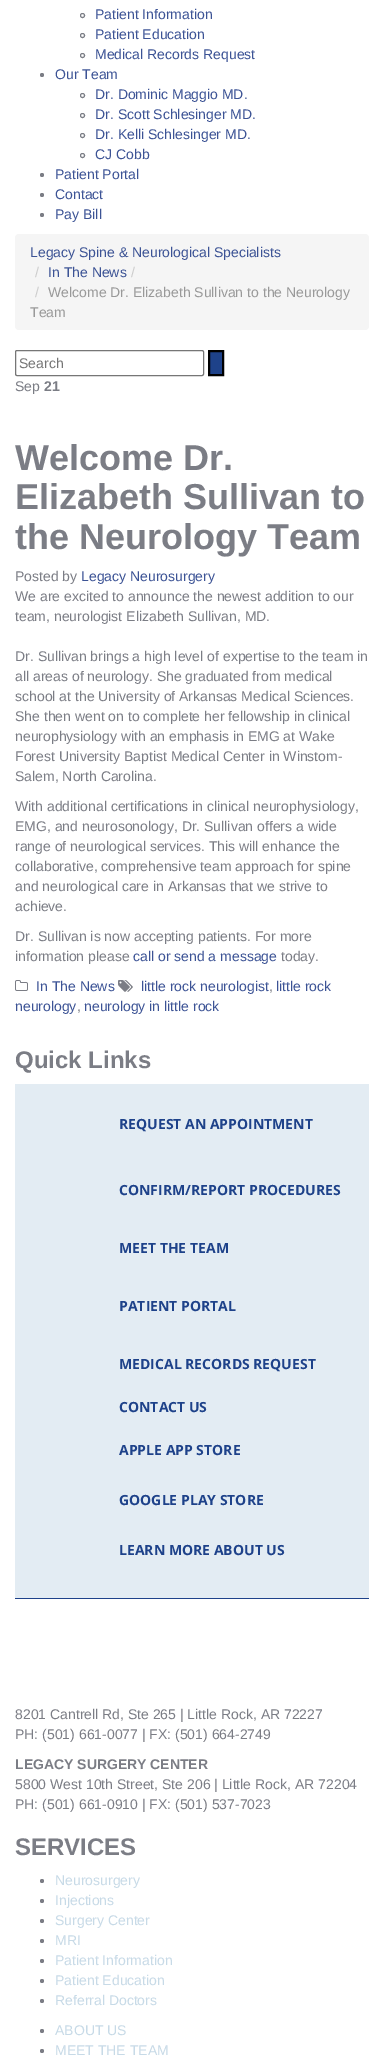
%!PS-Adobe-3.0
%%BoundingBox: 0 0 384 2067
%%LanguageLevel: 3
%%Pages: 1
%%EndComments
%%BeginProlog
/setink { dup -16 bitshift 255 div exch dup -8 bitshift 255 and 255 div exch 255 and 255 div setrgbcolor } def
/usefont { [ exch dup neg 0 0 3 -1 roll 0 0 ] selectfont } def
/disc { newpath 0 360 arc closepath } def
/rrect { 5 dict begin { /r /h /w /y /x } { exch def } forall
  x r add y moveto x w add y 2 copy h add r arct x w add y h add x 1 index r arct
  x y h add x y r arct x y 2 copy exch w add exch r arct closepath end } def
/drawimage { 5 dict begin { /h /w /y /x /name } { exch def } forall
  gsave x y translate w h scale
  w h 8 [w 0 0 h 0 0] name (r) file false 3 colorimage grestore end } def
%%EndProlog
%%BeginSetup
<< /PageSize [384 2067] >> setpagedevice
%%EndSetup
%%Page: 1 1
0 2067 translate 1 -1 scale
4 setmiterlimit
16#FFFFFF setink
0 0 384 2067 rectfill
16#7B7D85 setink
82.5 15.5 2 disc stroke
/LiberationSans-Regular 14 usefont
16#3C5395 setink
95 19 moveto (Patient Information) show
16#7B7D85 setink
82.5 35.5 2 disc stroke
16#3C5395 setink
95 39 moveto (Patient Education) show
16#7B7D85 setink
82.5 55.5 2 disc stroke
16#3C5395 setink
95 59 moveto (Medical Records Request) show
16#7B7D85 setink
42 75 2 disc fill
16#3C5395 setink
55 79 moveto (Our Team) show
16#7B7D85 setink
82.5 95.5 2 disc stroke
16#3C5395 setink
95 99 moveto (Dr. Dominic Maggio MD.) show
16#7B7D85 setink
82.5 115.5 2 disc stroke
16#3C5395 setink
95 119 moveto (Dr. Scott Schlesinger MD.) show
16#7B7D85 setink
82.5 135.5 2 disc stroke
16#3C5395 setink
95 139 moveto (Dr. Kelli Schlesinger MD.) show
16#7B7D85 setink
82.5 155.5 2 disc stroke
16#3C5395 setink
95 159 moveto (CJ Cobb) show
16#7B7D85 setink
42 175 2 disc fill
16#3C5395 setink
55 179 moveto (Patient Portal) show
16#7B7D85 setink
42 195 2 disc fill
16#3C5395 setink
55 199 moveto (Contact) show
16#7B7D85 setink
42 215 2 disc fill
16#3C5395 setink
55 219 moveto (Pay Bill) show
16#F5F5F5 setink
15 234 354 96 4 rrect fill
16#3C5395 setink
30 257 moveto (Legacy Spine & Neurological Specialists) show
16#CCCCCC setink
35 277 moveto (/) show
16#3C5395 setink
48 277 moveto (In The News) show
16#CCCCCC setink
131 277 moveto (/) show
35 297 moveto (/) show
16#999999 setink
48 297 moveto (Welcome Dr. Elizabeth Sullivan to the Neurology) show
30 317 moveto (Team) show
16#767676 setink
15.5 350.5 188 25 1.5 rrect stroke
16#757575 setink
19 368 moveto (Search) show
16#1E428A setink
209 351 moveto 223 351 lineto 223 375 lineto 209 375 lineto closepath gsave fill grestore
16#000000 setink
2 setlinewidth
stroke
16#7B7D85 setink
15 391 moveto (Sep) show
/LiberationSans-Bold 14 usefont
44 391 moveto (21) show
/LiberationSans-Bold 36 usefont
[
    [(Welcome Dr.) 15 470]
    [(Elizabeth Sullivan to) 15 509]
    [(the Neurology Team) 15 549]
] { aload pop moveto show } forall
/LiberationSans-Regular 14 usefont
15 581 moveto (Posted by) show
16#3C5395 setink
81 581 moveto (Legacy Neurosurgery) show
16#7B7D85 setink
[
    [(We are excited to announce the newest addition to our) 15 601]
    [(team, neurologist Elizabeth Sullivan, MD.) 15 621]
    [(Dr. Sullivan brings a high level of expertise to the team in) 15 661]
    [(all areas of neurology. She graduated from medical) 15 681]
    [(school at the University of Arkansas Medical Sciences.) 15 701]
    [(She then went on to complete her fellowship in clinical) 15 721]
    [(neurophysiology with an emphasis in EMG at Wake) 15 741]
    [(Forest University Baptist Medical Center in Winstom-) 15 761]
    [(Salem, North Carolina.) 15 781]
    [(With additional certifications in clinical neurophysiology,) 15 811]
    [(EMG, and neurosonology, Dr. Sullivan offers a wide) 15 831]
    [(range of neurological services. This will enhance the) 15 851]
    [(collaborative, comprehensive team approach for spine) 15 871]
    [(and neurological care in Arkansas that we strive to) 15 891]
    [(achieve.) 15 911]
    [(Dr. Sullivan is now accepting patients. For more) 15 941]
    [(information please) 15 961]
] { aload pop moveto show } forall
16#3C5395 setink
133 961 moveto (call or send a message) show
16#7B7D85 setink
281 961 moveto (today.) show
(img1.raw) 118 980 15 12 drawimage
16#3C5395 setink
141 991 moveto (little rock neurologist) show
16#7B7D85 setink
269 991 moveto (,) show
16#3C5395 setink
276 991 moveto (little rock) show
15 1011 moveto (neurology) show
16#7B7D85 setink
77 1011 moveto (,) show
16#3C5395 setink
84 1011 moveto (neurology in little rock) show
(img2.raw) 15 980 13 11 drawimage
36 991 moveto (In The News) show
/LiberationSans-Bold 24 usefont
16#7B7D85 setink
15 1068 moveto (Quick Links) show
16#E3ECF3 setink
15 1084 354 514 rectfill
16#1E428A setink
15 1598 354 1 rectfill
/OpenSans-Bold 14 usefont
[
    [(REQUEST AN APPOINTMENT) 119 1129]
    [(CONFIRM/REPORT PROCEDURES) 119 1195]
    [(MEET THE TEAM) 119 1253]
    [(PATIENT PORTAL) 119 1311]
    [(MEDICAL RECORDS REQUEST) 119 1369]
    [(CONTACT US) 119 1412]
    [(APPLE APP STORE) 119 1455]
    [(GOOGLE PLAY STORE) 119 1505]
    [(LEARN MORE ABOUT US) 119 1555]
] { aload pop moveto show } forall
/LiberationSans-Regular 14 usefont
16#7B7D85 setink
15 1719 moveto (8201 Cantrell Rd, Ste 265 | Little Rock, AR 72227) show
15 1739 moveto (PH: \(501\) 661-0077 | FX: \(501\) 664-2749) show
/LiberationSans-Bold 14 usefont
15 1769 moveto (LEGACY SURGERY CENTER) show
/LiberationSans-Regular 14 usefont
15 1789 moveto (5800 West 10th Street, Ste 206 | Little Rock, AR 72204) show
15 1809 moveto (PH: \(501\) 661-0910 | FX: \(501\) 537-7023) show
/LiberationSans-Bold 24 usefont
15 1855 moveto (SERVICES) show
42 1881 2 disc fill
/LiberationSans-Regular 14 usefont
16#C7DAE7 setink
55 1885 moveto (Neurosurgery) show
16#7B7D85 setink
42 1901 2 disc fill
16#C7DAE7 setink
55 1905 moveto (Injections) show
16#7B7D85 setink
42 1921 2 disc fill
16#C7DAE7 setink
55 1925 moveto (Surgery Center) show
16#7B7D85 setink
42 1941 2 disc fill
16#C7DAE7 setink
55 1945 moveto (MRI) show
16#7B7D85 setink
42 1961 2 disc fill
16#C7DAE7 setink
55 1965 moveto (Patient Information) show
16#7B7D85 setink
42 1981 2 disc fill
16#C7DAE7 setink
55 1985 moveto (Patient Education) show
16#7B7D85 setink
42 2001 2 disc fill
16#C7DAE7 setink
55 2005 moveto (Referral Doctors) show
16#7B7D85 setink
42 2031 2 disc fill
16#C7DAE7 setink
55 2035 moveto (ABOUT US) show
16#7B7D85 setink
42 2051 2 disc fill
16#C7DAE7 setink
55 2055 moveto (MEET THE TEAM) show
showpage
%%EOF
